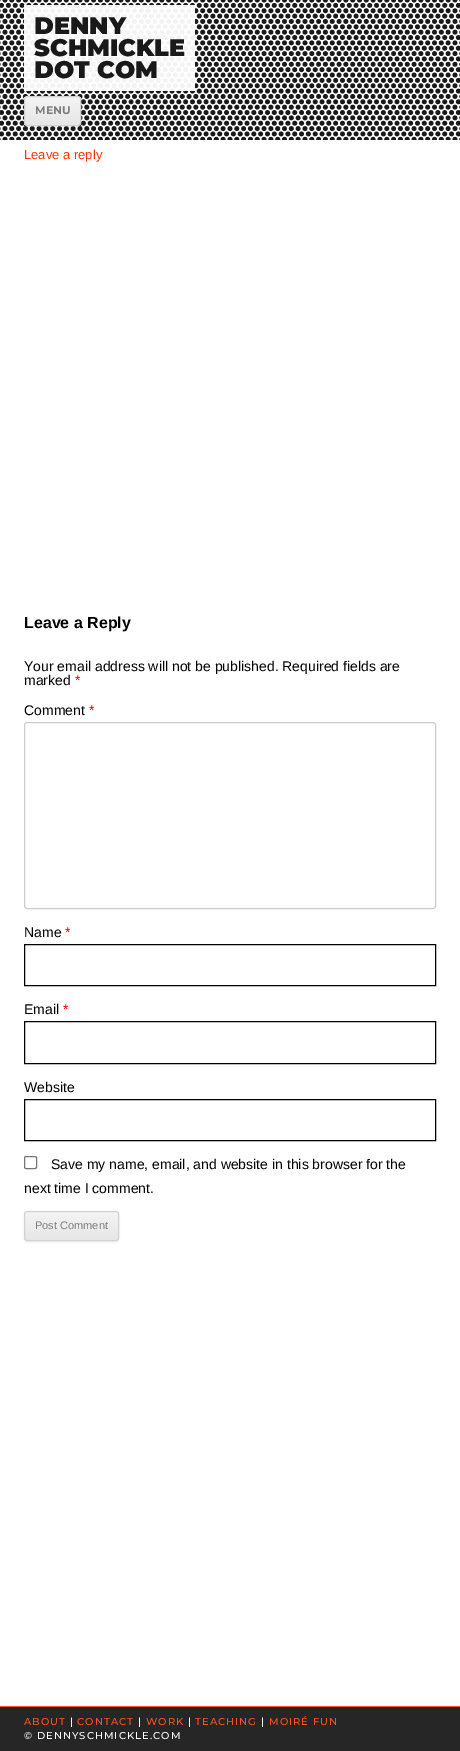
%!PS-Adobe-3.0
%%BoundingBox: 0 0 460 1751
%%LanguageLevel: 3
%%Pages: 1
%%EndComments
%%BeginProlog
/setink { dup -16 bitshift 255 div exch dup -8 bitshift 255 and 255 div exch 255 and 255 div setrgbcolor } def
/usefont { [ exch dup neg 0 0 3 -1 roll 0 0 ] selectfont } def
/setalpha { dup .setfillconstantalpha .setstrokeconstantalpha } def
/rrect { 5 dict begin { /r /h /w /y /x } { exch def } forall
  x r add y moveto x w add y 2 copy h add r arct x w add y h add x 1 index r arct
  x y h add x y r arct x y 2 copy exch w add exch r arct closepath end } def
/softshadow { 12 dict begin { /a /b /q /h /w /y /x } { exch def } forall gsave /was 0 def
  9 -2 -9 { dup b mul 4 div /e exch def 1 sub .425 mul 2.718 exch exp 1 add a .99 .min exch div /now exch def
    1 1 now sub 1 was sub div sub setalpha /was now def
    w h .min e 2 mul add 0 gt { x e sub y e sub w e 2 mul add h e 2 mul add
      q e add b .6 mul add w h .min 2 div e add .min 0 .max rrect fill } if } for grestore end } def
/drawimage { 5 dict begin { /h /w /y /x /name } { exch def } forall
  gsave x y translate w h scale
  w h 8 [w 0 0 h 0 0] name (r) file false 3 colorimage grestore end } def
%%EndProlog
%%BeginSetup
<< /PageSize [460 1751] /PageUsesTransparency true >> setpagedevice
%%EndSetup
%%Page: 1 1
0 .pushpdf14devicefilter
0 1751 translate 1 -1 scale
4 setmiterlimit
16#FFFFFF setink
0 0 460 1751 rectfill
(img1.raw) 0 0 460 140 drawimage
0.95 setalpha
24 5 171 86 rectfill
/Montserrat-Black 24 usefont
1 setalpha
16#191919 setink
[
    [(DENNY) 34 34]
    [(SCHMICKLE) 34 56]
    [(DOT COM) 34 78]
] { aload pop moveto show } forall
0.85 setalpha
16#000000 setink
24 96 57 30 rectfill
1 setalpha
16#404040 setink
24 97 57 30 3 1 0.1 softshadow
gsave
24 96 57 30 3 rrect clip newpath
gsave 24 97 moveto 81 97 lineto 81 125 lineto 24 125 lineto closepath clip newpath
<< /ShadingType 2 /ColorSpace /DeviceRGB /Coords [53 97 53 125] /Extend [true true] /Function << /FunctionType 2 /Domain [0 1] /C0 [0.957 0.957 0.957] /C1 [0.902 0.902 0.902] /N 1 >> >> shfill grestore
grestore
16#D2D2D2 setink
24.5 96.5 56 29 2.5 rrect stroke
/Montserrat-Bold 11 usefont
16#7C7C7C setink
35 114 moveto (MENU) show
/LiberationSans-Regular 13 usefont
16#FF3300 setink
24 159 moveto (Leave a reply) show
/LiberationSans-Bold 16 usefont
16#000000 setink
24 628 moveto (Leave a Reply) show
/LiberationSans-Regular 14 usefont
24 671 moveto (Your email address will not be published. Required fields are) show
24 685 moveto (marked) show
16#FF0000 setink
75 685 moveto (*) show
16#000000 setink
24 715 moveto (Comment) show
16#FF0000 setink
89 715 moveto (*) show
16#CCCCCC setink
24.5 722.5 411 186 2.5 rrect stroke
16#000000 setink
24 937 moveto (Name) show
16#FF0000 setink
65 937 moveto (*) show
16#000000 setink
24.5 944.5 411 41 rectstroke
24 1014 moveto (Email) show
16#FF0000 setink
63 1014 moveto (*) show
16#000000 setink
24.5 1021.5 411 42 rectstroke
24 1092 moveto (Website) show
24.5 1099.5 411 41 rectstroke
16#767676 setink
24.5 1156.5 12 12 1.5 rrect stroke
16#000000 setink
51 1169 moveto (Save my name, email, and website in this browser for the) show
24 1193 moveto (next time I comment.) show
16#404040 setink
24 1212 95 30 3 1 0.1 softshadow
gsave
24 1211 95 30 3 rrect clip newpath
gsave 24 1212 moveto 119 1212 lineto 119 1240 lineto 24 1240 lineto closepath clip newpath
<< /ShadingType 2 /ColorSpace /DeviceRGB /Coords [72 1212 72 1240] /Extend [true true] /Function << /FunctionType 2 /Domain [0 1] /C0 [0.957 0.957 0.957] /C1 [0.902 0.902 0.902] /N 1 >> >> shfill grestore
grestore
16#D2D2D2 setink
24.5 1211.5 94 29 2.5 rrect stroke
/LiberationSans-Regular 11 usefont
16#7C7C7C setink
35 1229 moveto (Post Comment) show
16#262626 setink
0 1707 460 44 rectfill
16#FF5226 setink
0 1706 460 1 rectfill
/Montserrat-Medium 10 usefont
24 1725 moveto 1 0 (ABOUT) ashow
16#FFFFFF setink
70 1725 moveto 1 0 (|) ashow
16#FF5226 setink
77 1725 moveto 1 0 (CONTACT) ashow
16#FFFFFF setink
138 1725 moveto 1 0 (|) ashow
16#FF5226 setink
146 1725 moveto 1 0 (WORK) ashow
16#FFFFFF setink
188 1725 moveto 1 0 (|) ashow
16#FF5226 setink
195 1725 moveto 1 0 (TEACHING) ashow
16#FFFFFF setink
261 1725 moveto 1 0 (|) ashow
16#FF5226 setink
269 1725 moveto 1 0 (MOIRÉ FUN) ashow
16#FFFFFF setink
24 1739 moveto 1 0 (© DENNYSCHMICKLE.COM) ashow
.poppdf14devicefilter showpage
%%EOF
